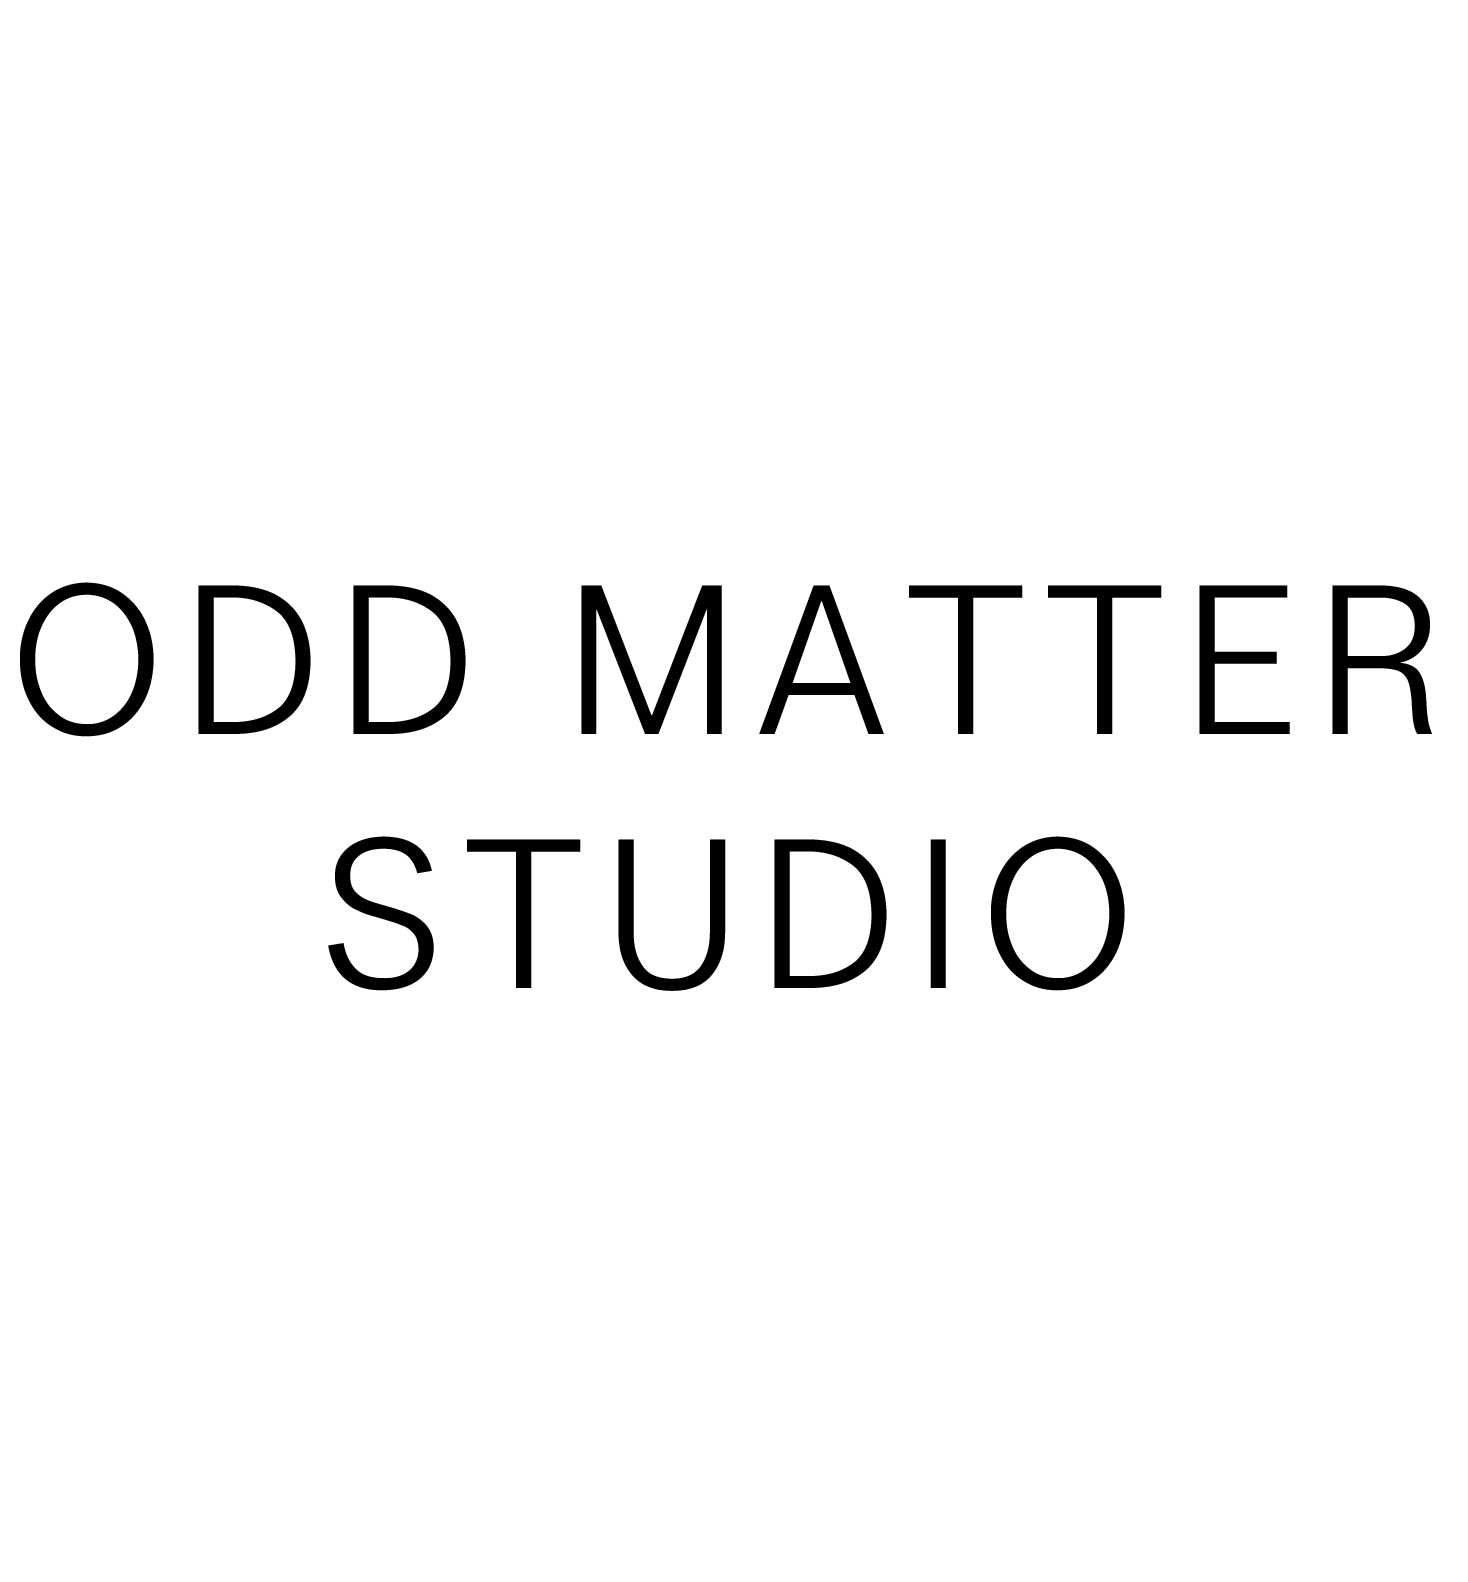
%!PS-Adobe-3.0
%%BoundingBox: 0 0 1468 1582
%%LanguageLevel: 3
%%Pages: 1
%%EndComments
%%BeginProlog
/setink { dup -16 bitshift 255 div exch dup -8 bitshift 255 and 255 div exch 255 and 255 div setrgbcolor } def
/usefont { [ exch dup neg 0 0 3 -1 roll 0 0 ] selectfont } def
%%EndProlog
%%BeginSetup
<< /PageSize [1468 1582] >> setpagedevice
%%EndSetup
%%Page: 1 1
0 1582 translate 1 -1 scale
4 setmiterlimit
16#FFFFFF setink
0 0 1468 1582 rectfill
/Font-ExtraLight 206.5 usefont
16#000000 setink
9 734 moveto 17 0 (ODD MATTER) ashow
317 988 moveto 17 0 (STUDIO) ashow
showpage
%%EOF
